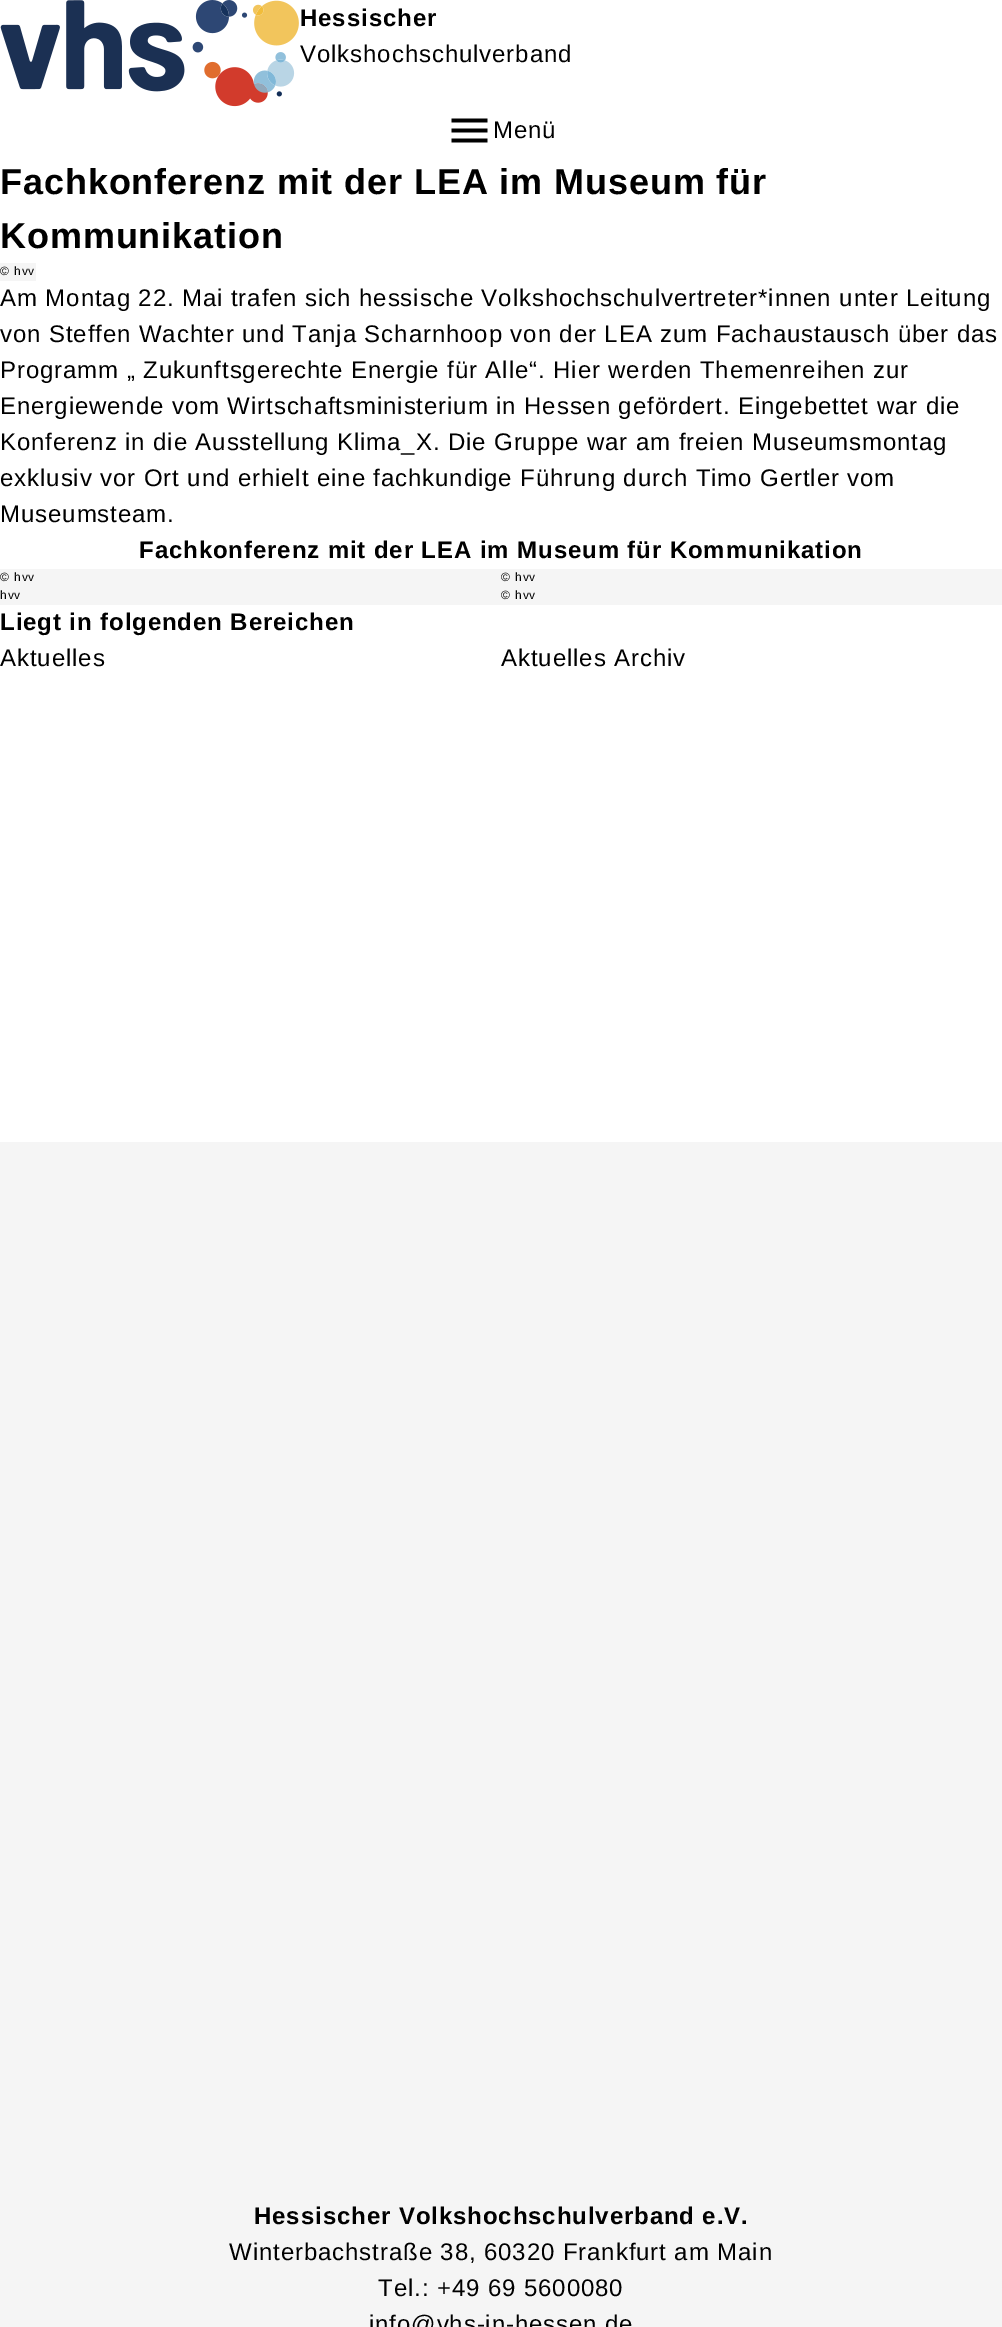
%!PS-Adobe-3.0
%%BoundingBox: 0 0 1002 2327
%%LanguageLevel: 3
%%Pages: 1
%%EndComments
%%BeginProlog
/setink { dup -16 bitshift 255 div exch dup -8 bitshift 255 and 255 div exch 255 and 255 div setrgbcolor } def
/usefont { [ exch dup neg 0 0 3 -1 roll 0 0 ] selectfont } def
/drawimage { 5 dict begin { /h /w /y /x /name } { exch def } forall
  gsave x y translate w h scale
  w h 8 [w 0 0 h 0 0] name (r) file false 3 colorimage grestore end } def
%%EndProlog
%%BeginSetup
<< /PageSize [1002 2327] >> setpagedevice
%%EndSetup
%%Page: 1 1
0 2327 translate 1 -1 scale
4 setmiterlimit
16#FFFFFF setink
0 0 1002 2327 rectfill
(img1.raw) 0 0 299 107 drawimage
/LiberationSans-Bold 24 usefont
16#000000 setink
300 26 moveto 0.9 0 (Hessischer) ashow
/LiberationSans-Regular 24 usefont
300 62 moveto 0.9 0 (Volkshochschulverband) ashow
(img2.raw) 451 118 37 25 drawimage
493 138 moveto 0.9 0 (Menü) ashow
/LiberationSans-Bold 36 usefont
0 194 moveto 0.9 0 (Fachkonferenz mit der LEA im Museum für) ashow
0 248 moveto 0.9 0 (Kommunikation) ashow
16#F5F5F5 setink
0 263 36 18 rectfill
/LiberationSans-Regular 12 usefont
16#000000 setink
0 275 moveto 0.9 0 (© hvv) ashow
/LiberationSans-Regular 24 usefont
0 306 moveto 0.9 0 (Am Montag 22. Mai trafen sich hessische Volkshochschulvertreter*innen unter Leitung) ashow
0 342 moveto 0.9 0 (von Steffen Wachter und Tanja Scharnhoop von der LEA zum Fachaustausch über das) ashow
0 378 moveto 0.9 0 (Programm „ Zukunftsgerechte Energie für Alle“. Hier werden Themenreihen zur) ashow
0 414 moveto 0.9 0 (Energiewende vom Wirtschaftsministerium in Hessen gefördert. Eingebettet war die) ashow
0 450 moveto 0.9 0 (Konferenz in die Ausstellung Klima_X. Die Gruppe war am freien Museumsmontag) ashow
0 486 moveto 0.9 0 (exklusiv vor Ort und erhielt eine fachkundige Führung durch Timo Gertler vom) ashow
0 522 moveto 0.9 0 (Museumsteam.) ashow
/LiberationSans-Bold 24 usefont
139 558 moveto 0.9 0 (Fachkonferenz mit der LEA im Museum für Kommunikation) ashow
16#F5F5F5 setink
0 569 1002 18 rectfill
/LiberationSans-Regular 12 usefont
16#000000 setink
0 581 moveto 0.9 0 (© hvv) ashow
501 581 moveto 0.9 0 (© hvv) ashow
16#F5F5F5 setink
0 587 1002 18 rectfill
16#000000 setink
0 599 moveto 0.9 0 (hvv) ashow
501 599 moveto 0.9 0 (© hvv) ashow
/LiberationSans-Bold 24 usefont
0 630 moveto 0.9 0 (Liegt in folgenden Bereichen) ashow
/LiberationSans-Regular 24 usefont
0 666 moveto 0.9 0 (Aktuelles) ashow
501 666 moveto 0.9 0 (Aktuelles Archiv) ashow
16#F5F5F5 setink
0 1142 1002 1185 rectfill
/LiberationSans-Bold 24 usefont
16#000000 setink
254 2224 moveto 0.9 0 (Hessischer Volkshochschulverband e.V.) ashow
/LiberationSans-Regular 24 usefont
229 2260 moveto 0.9 0 (Winterbachstraße 38, 60320 Frankfurt am Main) ashow
378 2296 moveto 0.9 0 (Tel.: +49 69 5600080) ashow
369 2332 moveto 0.9 0 (info@vhs-in-hessen.de) ashow
showpage
%%EOF
